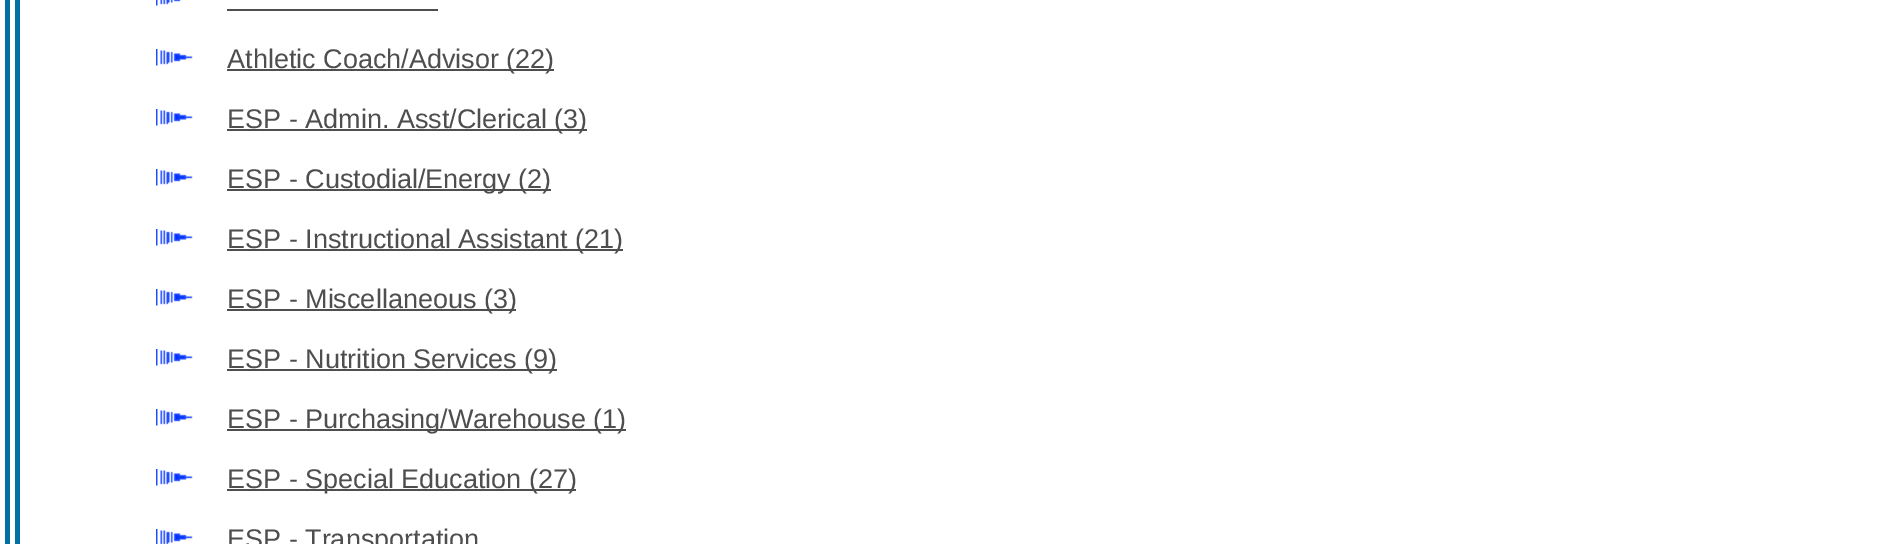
%!PS-Adobe-3.0
%%BoundingBox: 0 0 1897 544
%%LanguageLevel: 3
%%Pages: 1
%%EndComments
%%BeginProlog
/setink { dup -16 bitshift 255 div exch dup -8 bitshift 255 and 255 div exch 255 and 255 div setrgbcolor } def
/usefont { [ exch dup neg 0 0 3 -1 roll 0 0 ] selectfont } def
/drawimage { 5 dict begin { /h /w /y /x /name } { exch def } forall
  gsave x y translate w h scale
  w h 8 [w 0 0 h 0 0] name (r) file false 3 colorimage grestore end } def
%%EndProlog
%%BeginSetup
<< /PageSize [1897 544] >> setpagedevice
%%EndSetup
%%Page: 1 1
0 544 translate 1 -1 scale
4 setmiterlimit
16#FFFFFF setink
0 0 1897 544 rectfill
16#0071A2 setink
5 0 5 544 rectfill
15 0 5 544 rectfill
(img1.raw) 156 0 25 6 drawimage
16#4E4E4E setink
227 9 211 2 rectfill
(img2.raw) 156 49 37 17 drawimage
227 69 327 2 rectfill
/LiberationSans-Regular 27 usefont
227 68 moveto (Athletic Coach/Advisor \(22\)) show
(img2.raw) 156 109 37 17 drawimage
227 129 360 2 rectfill
227 128 moveto (ESP - Admin. Asst/Clerical \(3\)) show
(img2.raw) 156 169 37 17 drawimage
227 189 324 2 rectfill
227 188 moveto (ESP - Custodial/Energy \(2\)) show
(img2.raw) 156 229 37 17 drawimage
227 249 396 2 rectfill
227 248 moveto (ESP - Instructional Assistant \(21\)) show
(img2.raw) 156 289 37 17 drawimage
227 309 289 2 rectfill
227 308 moveto (ESP - Miscellaneous \(3\)) show
(img2.raw) 156 349 37 17 drawimage
227 369 330 2 rectfill
227 368 moveto (ESP - Nutrition Services \(9\)) show
(img2.raw) 156 409 37 17 drawimage
227 429 399 2 rectfill
227 428 moveto (ESP - Purchasing/Warehouse \(1\)) show
(img2.raw) 156 469 37 17 drawimage
227 489 349 2 rectfill
227 488 moveto (ESP - Special Education \(27\)) show
(img3.raw) 156 529 37 15 drawimage
227 548 moveto (ESP - Transportation) show
showpage
%%EOF
